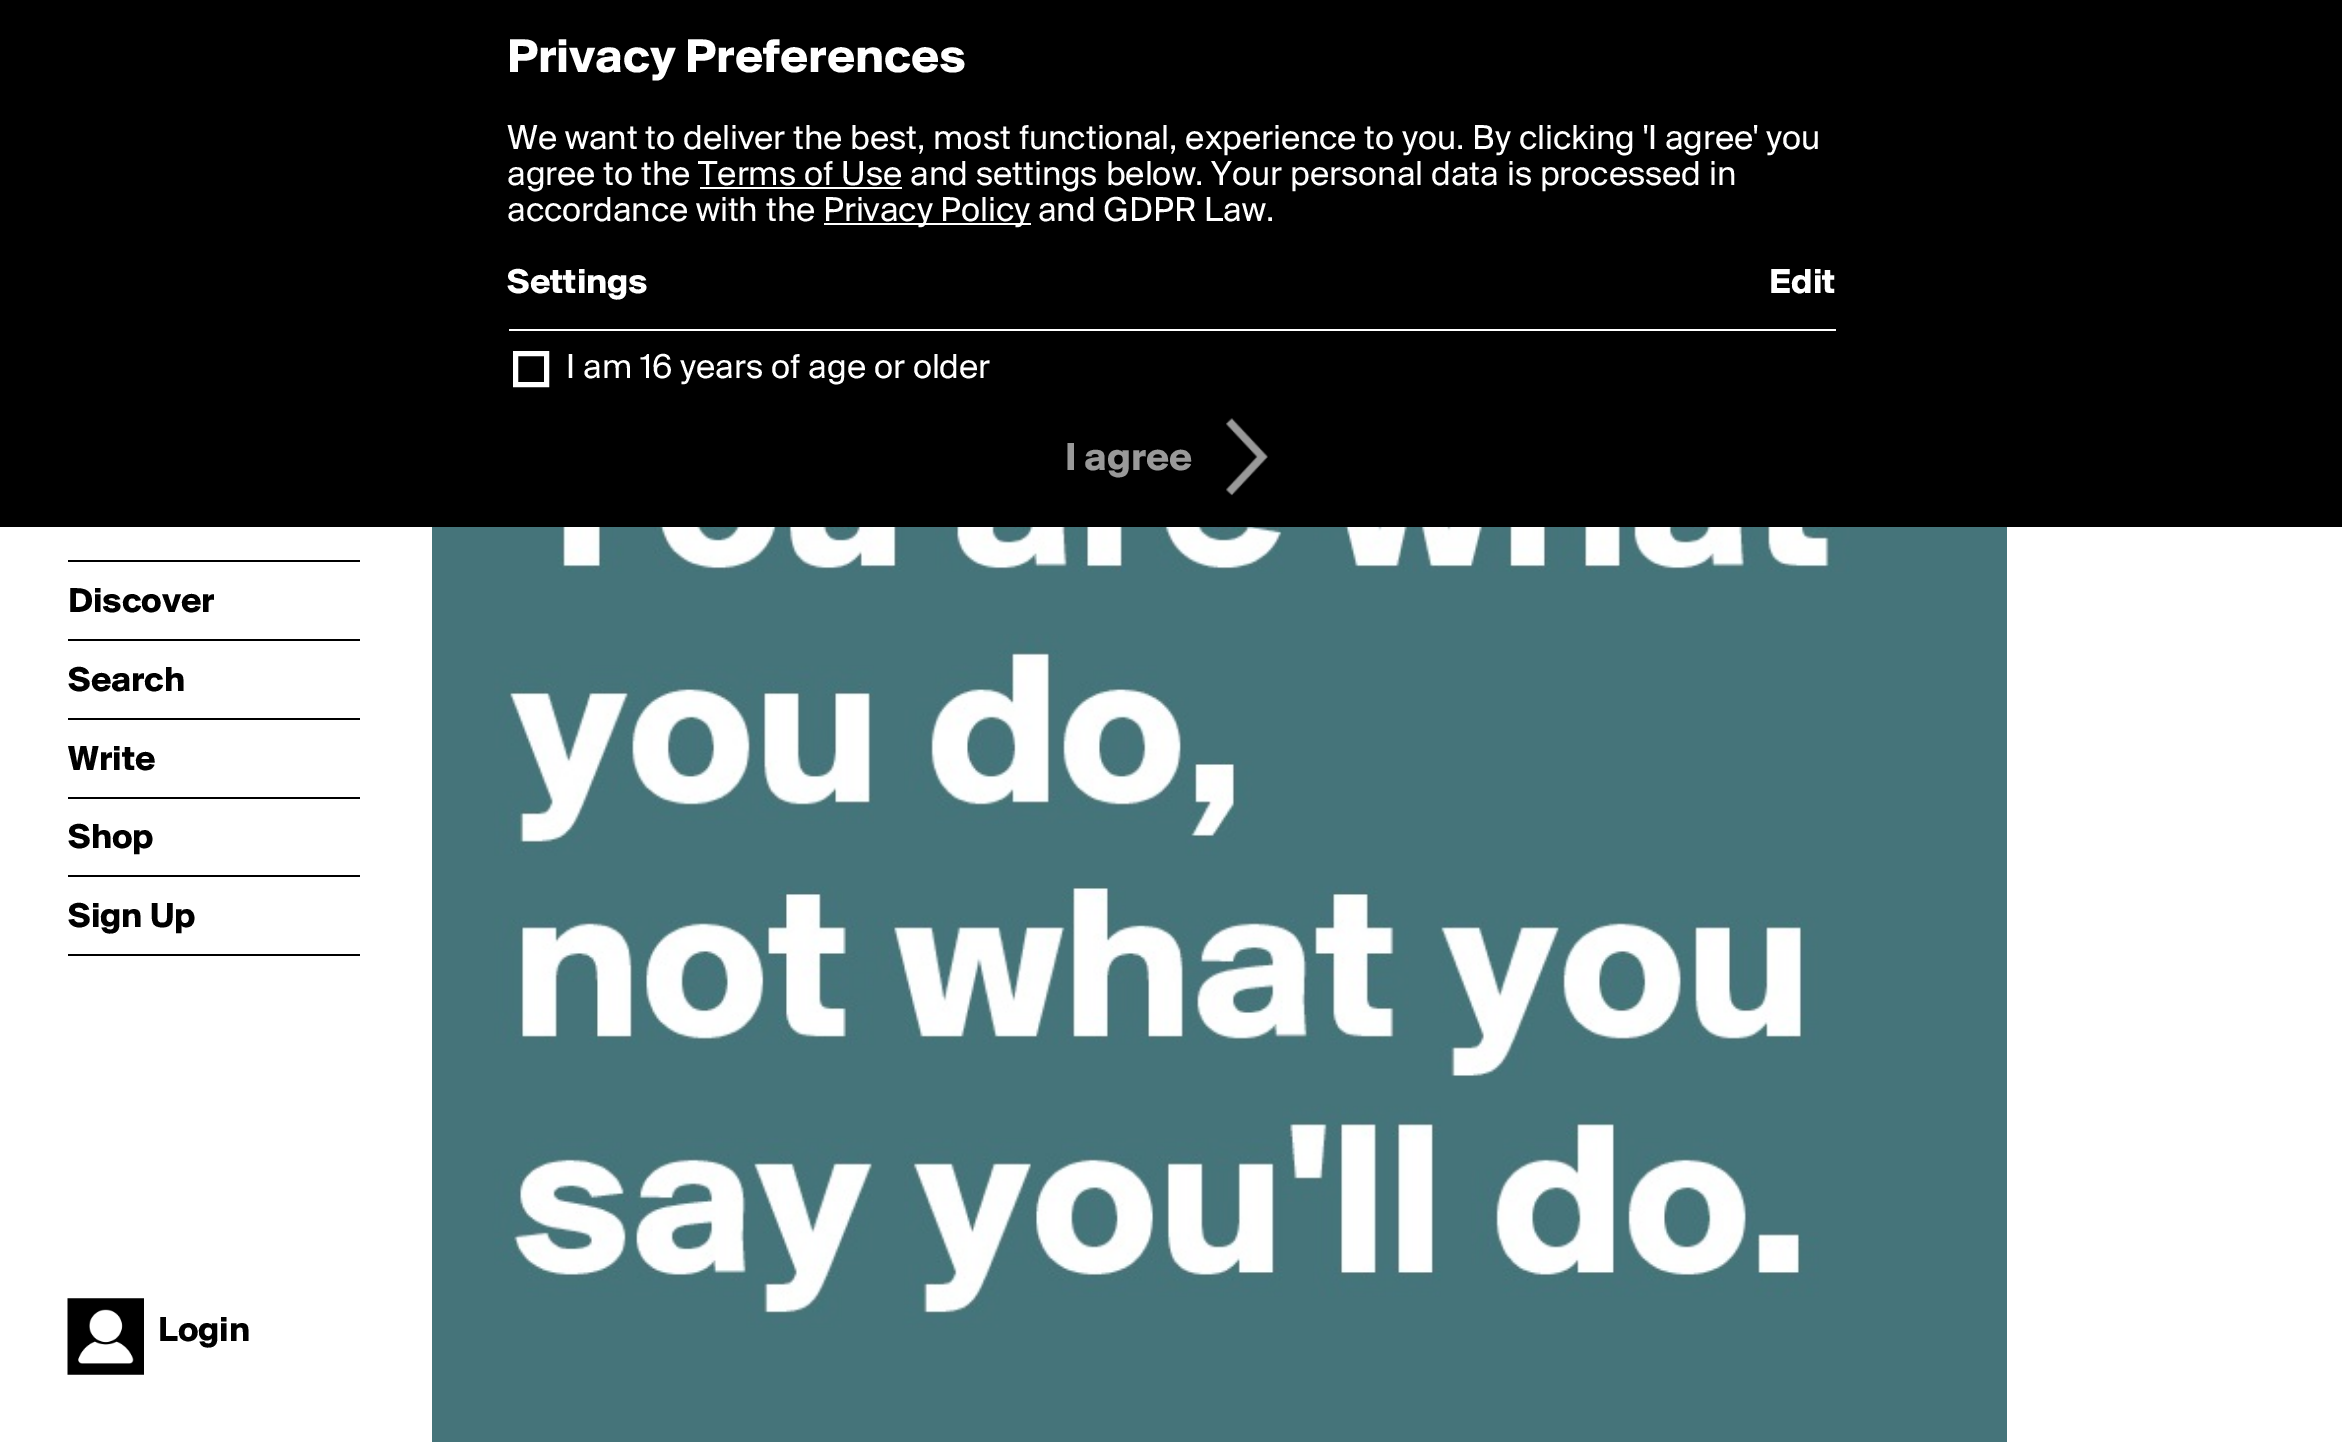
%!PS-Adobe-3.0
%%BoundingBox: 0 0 2342 1442
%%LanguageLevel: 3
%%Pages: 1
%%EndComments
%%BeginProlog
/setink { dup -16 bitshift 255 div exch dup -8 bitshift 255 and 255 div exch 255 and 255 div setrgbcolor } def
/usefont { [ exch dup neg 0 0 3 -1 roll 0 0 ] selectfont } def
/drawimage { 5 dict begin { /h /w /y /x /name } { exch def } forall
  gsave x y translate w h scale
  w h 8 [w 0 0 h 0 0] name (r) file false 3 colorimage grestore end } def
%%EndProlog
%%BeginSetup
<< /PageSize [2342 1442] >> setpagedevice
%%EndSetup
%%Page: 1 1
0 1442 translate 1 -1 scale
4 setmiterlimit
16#FFFFFF setink
0 0 2342 1442 rectfill
16#000000 setink
0 0 2342 527 rectfill
/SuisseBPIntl-Bold 49.5 usefont
16#FFFFFF setink
507 72 moveto (Privacy Preferences) show
/SuisseBPIntl-Regular 36 usefont
507 149 moveto (We want to deliver the best, most functional, experience to you. By clicking 'I agree' you) show
507 185 moveto (agree to the Terms of Use and settings below. Your personal data is processed in) show
700 187 202 2 rectfill
507 221 moveto (accordance with the) show
824 223 207 2 rectfill
823 221 moveto (Privacy Policy and GDPR Law.) show
/SuisseBPIntl-Bold 36 usefont
507 293 moveto (Settings) show
1769 293 moveto (Edit) show
509 329 1327 2 rectfill
5 setlinewidth
515.5 353.5 31 31 rectstroke
/SuisseBPIntl-Regular 36 usefont
566 378 moveto (I am 16 years of age or older) show
/SuisseBPIntl-Bold 40.5 usefont
16#999999 setink
1065 470 moveto (I agree) show
(img1.raw) 1226 418 42 78 drawimage
16#000000 setink
68 560 292 2 rectfill
68 639 292 2 rectfill
/SuisseBPIntl-Bold 36 usefont
68 612 moveto (Discover) show
68 718 292 2 rectfill
68 691 moveto (Search) show
68 797 292 2 rectfill
68 770 moveto (Write) show
68 875 292 2 rectfill
68 848 moveto (Shop) show
68 954 292 2 rectfill
68 927 moveto (Sign Up) show
(img2.raw) 67 1298 77 77 drawimage
158 1341 moveto (Login) show
(img3.raw) 432 527 1575 915 drawimage
showpage
%%EOF
